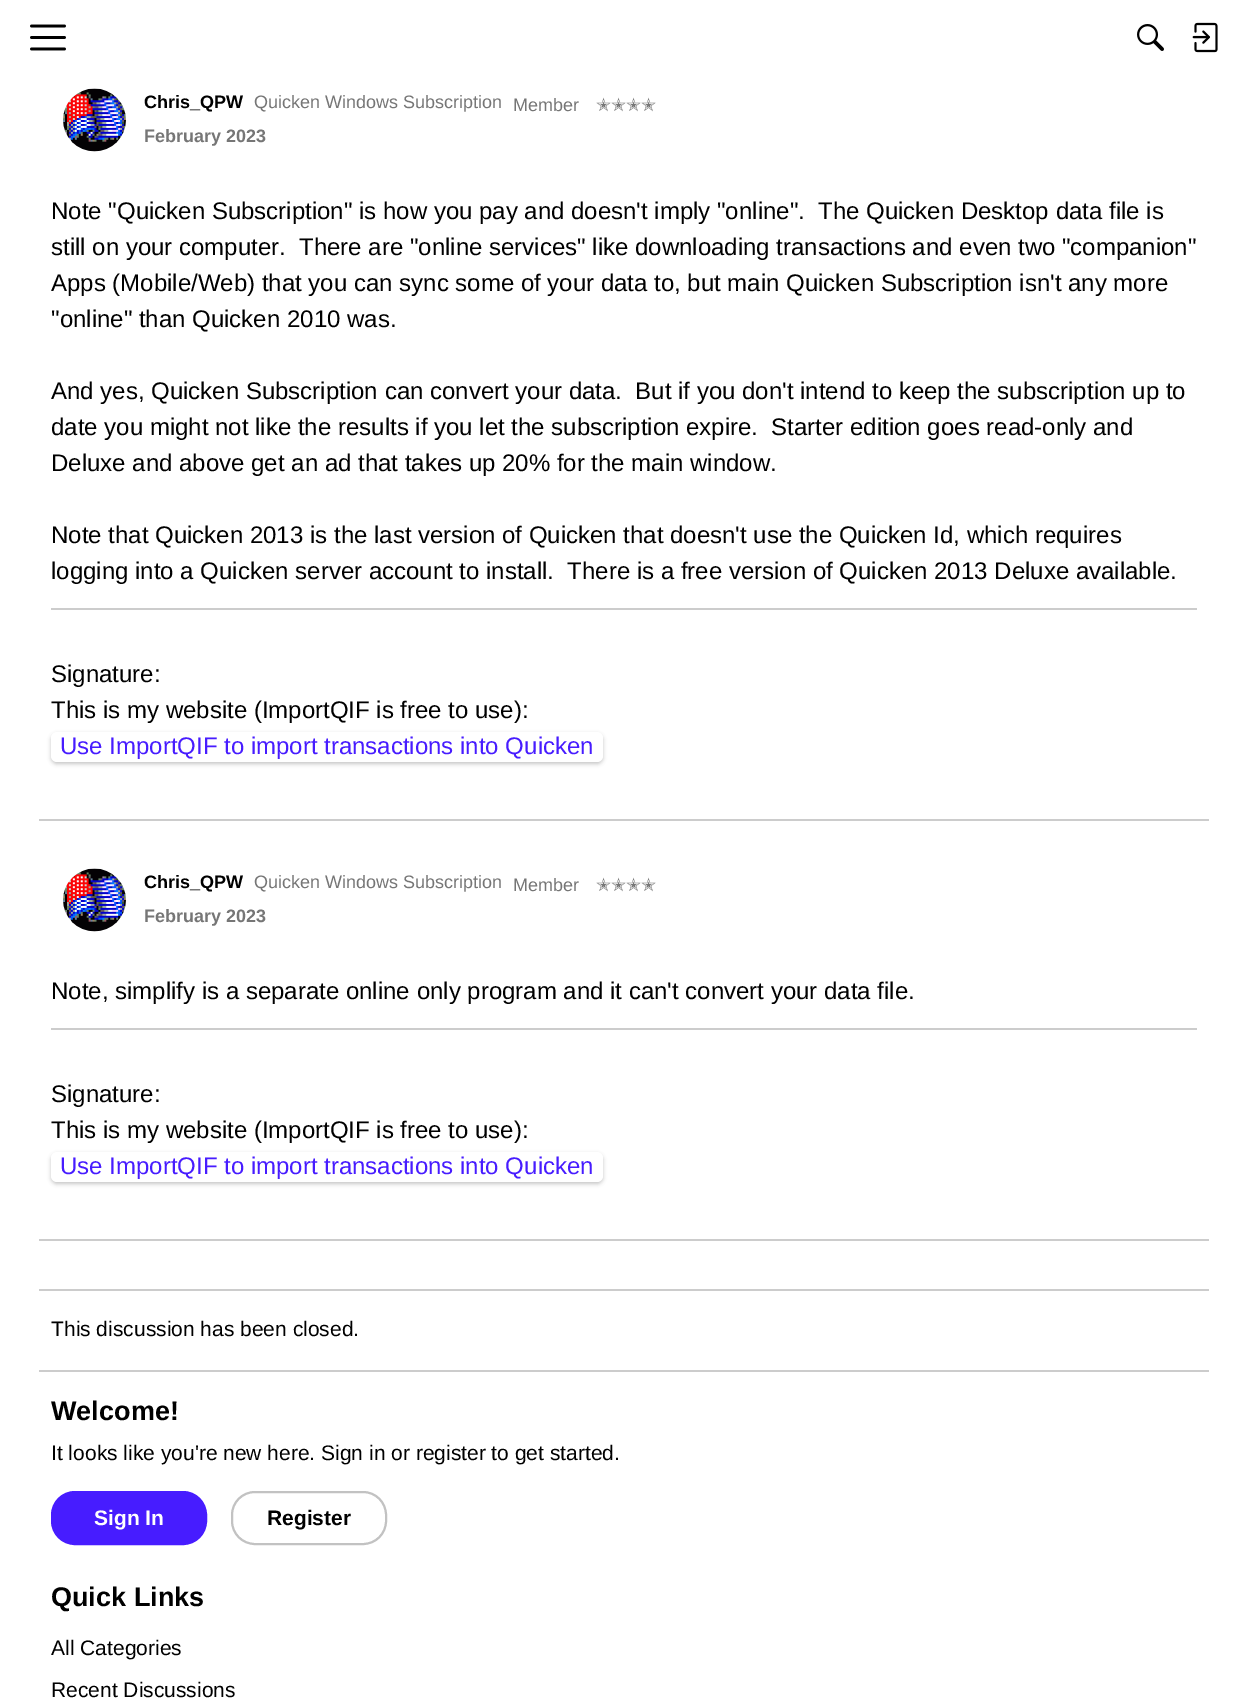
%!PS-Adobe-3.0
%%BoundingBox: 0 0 1247 1700
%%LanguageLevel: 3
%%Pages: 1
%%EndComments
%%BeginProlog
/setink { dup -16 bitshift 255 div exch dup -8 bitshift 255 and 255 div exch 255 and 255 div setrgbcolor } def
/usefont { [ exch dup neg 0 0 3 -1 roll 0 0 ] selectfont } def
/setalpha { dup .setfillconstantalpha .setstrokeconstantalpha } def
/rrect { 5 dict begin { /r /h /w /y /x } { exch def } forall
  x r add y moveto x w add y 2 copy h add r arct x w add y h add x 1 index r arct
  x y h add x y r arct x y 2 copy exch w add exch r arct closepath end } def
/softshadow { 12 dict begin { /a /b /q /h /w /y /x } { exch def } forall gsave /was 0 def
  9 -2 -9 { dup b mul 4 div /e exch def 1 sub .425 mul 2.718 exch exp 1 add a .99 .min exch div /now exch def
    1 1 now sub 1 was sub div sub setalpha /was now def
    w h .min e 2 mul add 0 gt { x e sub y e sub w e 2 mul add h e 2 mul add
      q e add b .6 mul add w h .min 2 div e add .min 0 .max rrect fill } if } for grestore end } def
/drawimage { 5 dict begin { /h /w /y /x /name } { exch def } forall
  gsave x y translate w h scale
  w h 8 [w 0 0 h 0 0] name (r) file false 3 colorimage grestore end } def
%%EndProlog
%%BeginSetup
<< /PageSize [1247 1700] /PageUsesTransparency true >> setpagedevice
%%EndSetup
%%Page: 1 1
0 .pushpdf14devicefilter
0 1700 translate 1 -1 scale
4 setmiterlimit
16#FFFFFF setink
0 0 1247 1700 rectfill
(img1.raw) 30 24 36 27 drawimage
(img2.raw) 1137 24 27 27 drawimage
(img3.raw) 1192 22 26 31 drawimage
(img4.raw) 63 88 63 64 drawimage
/LiberationSans-Bold 18 usefont
16#000000 setink
144 108 moveto (Chris_QPW) show
/LiberationSans-Regular 18 usefont
16#767676 setink
254 108 moveto (Quicken Windows Subscription) show
513 111 moveto (Member) show
/DejaVuSans-Regular 18 usefont
596 111 moveto (✭✭✭✭) show
/LiberationSans-Bold 18 usefont
144 142 moveto (February 2023) show
/LiberationSans-Regular 24 usefont
16#000000 setink
[
    [(Note "Quicken Subscription" is how you pay and doesn't imply "online".  The Quicken Desktop data file is) 51 219]
    [(still on your computer.  There are "online services" like downloading transactions and even two "companion") 51 255]
    [(Apps \(Mobile/Web\) that you can sync some of your data to, but main Quicken Subscription isn't any more) 51 291]
    [("online" than Quicken 2010 was.) 51 327]
    [(And yes, Quicken Subscription can convert your data.  But if you don't intend to keep the subscription up to) 51 399]
    [(date you might not like the results if you let the subscription expire.  Starter edition goes read-only and) 51 435]
    [(Deluxe and above get an ad that takes up 20% for the main window.) 51 471]
    [(Note that Quicken 2013 is the last version of Quicken that doesn't use the Quicken Id, which requires) 51 543]
    [(logging into a Quicken server account to install.  There is a free version of Quicken 2013 Deluxe available.) 51 579]
] { aload pop moveto show } forall
16#CCCCCC setink
51 608 1146 2 rectfill
16#000000 setink
51 682 moveto (Signature:) show
51 718 moveto (This is my website \(ImportQIF is free to use\):) show
51 734 552 30 6 2 0.22 softshadow
16#FFFFFF setink
51 732 552 30 6 rrect fill
16#471CFF setink
60 754 moveto (Use ImportQIF to import transactions into Quicken) show
16#CCCCCC setink
39 819 1170 2 rectfill
(img4.raw) 63 868 63 64 drawimage
/LiberationSans-Bold 18 usefont
16#000000 setink
144 888 moveto (Chris_QPW) show
/LiberationSans-Regular 18 usefont
16#767676 setink
254 888 moveto (Quicken Windows Subscription) show
513 891 moveto (Member) show
/DejaVuSans-Regular 18 usefont
596 891 moveto (✭✭✭✭) show
/LiberationSans-Bold 18 usefont
144 922 moveto (February 2023) show
/LiberationSans-Regular 24 usefont
16#000000 setink
51 999 moveto (Note, simplify is a separate online only program and it can't convert your data file.) show
16#CCCCCC setink
51 1028 1146 2 rectfill
16#000000 setink
51 1102 moveto (Signature:) show
51 1138 moveto (This is my website \(ImportQIF is free to use\):) show
51 1154 552 30 6 2 0.22 softshadow
16#FFFFFF setink
51 1152 552 30 6 rrect fill
16#471CFF setink
60 1174 moveto (Use ImportQIF to import transactions into Quicken) show
16#CCCCCC setink
39 1239 1170 2 rectfill
39 1289 1170 2 rectfill
/LiberationSans-Regular 21 usefont
16#000000 setink
51 1336 moveto (This discussion has been closed.) show
16#CCCCCC setink
39 1370 1170 2 rectfill
/LiberationSans-Bold 27 usefont
16#000000 setink
51 1420 moveto (Welcome!) show
/LiberationSans-Regular 21 usefont
51 1460 moveto (It looks like you're new here. Sign in or register to get started.) show
16#471CFF setink
52 1492 154 52 23 rrect gsave fill grestore
2 setlinewidth
stroke
/LiberationSans-Bold 21 usefont
16#FFFFFF setink
94 1525 moveto (Sign In) show
16#C2C2C2 setink
232 1492 154 52 23 rrect stroke
16#000000 setink
267 1525 moveto (Register) show
/LiberationSans-Bold 27 usefont
51 1606 moveto (Quick Links) show
/LiberationSans-Regular 21 usefont
51 1655 moveto (All Categories) show
51 1697 moveto (Recent Discussions) show
.poppdf14devicefilter showpage
%%EOF
